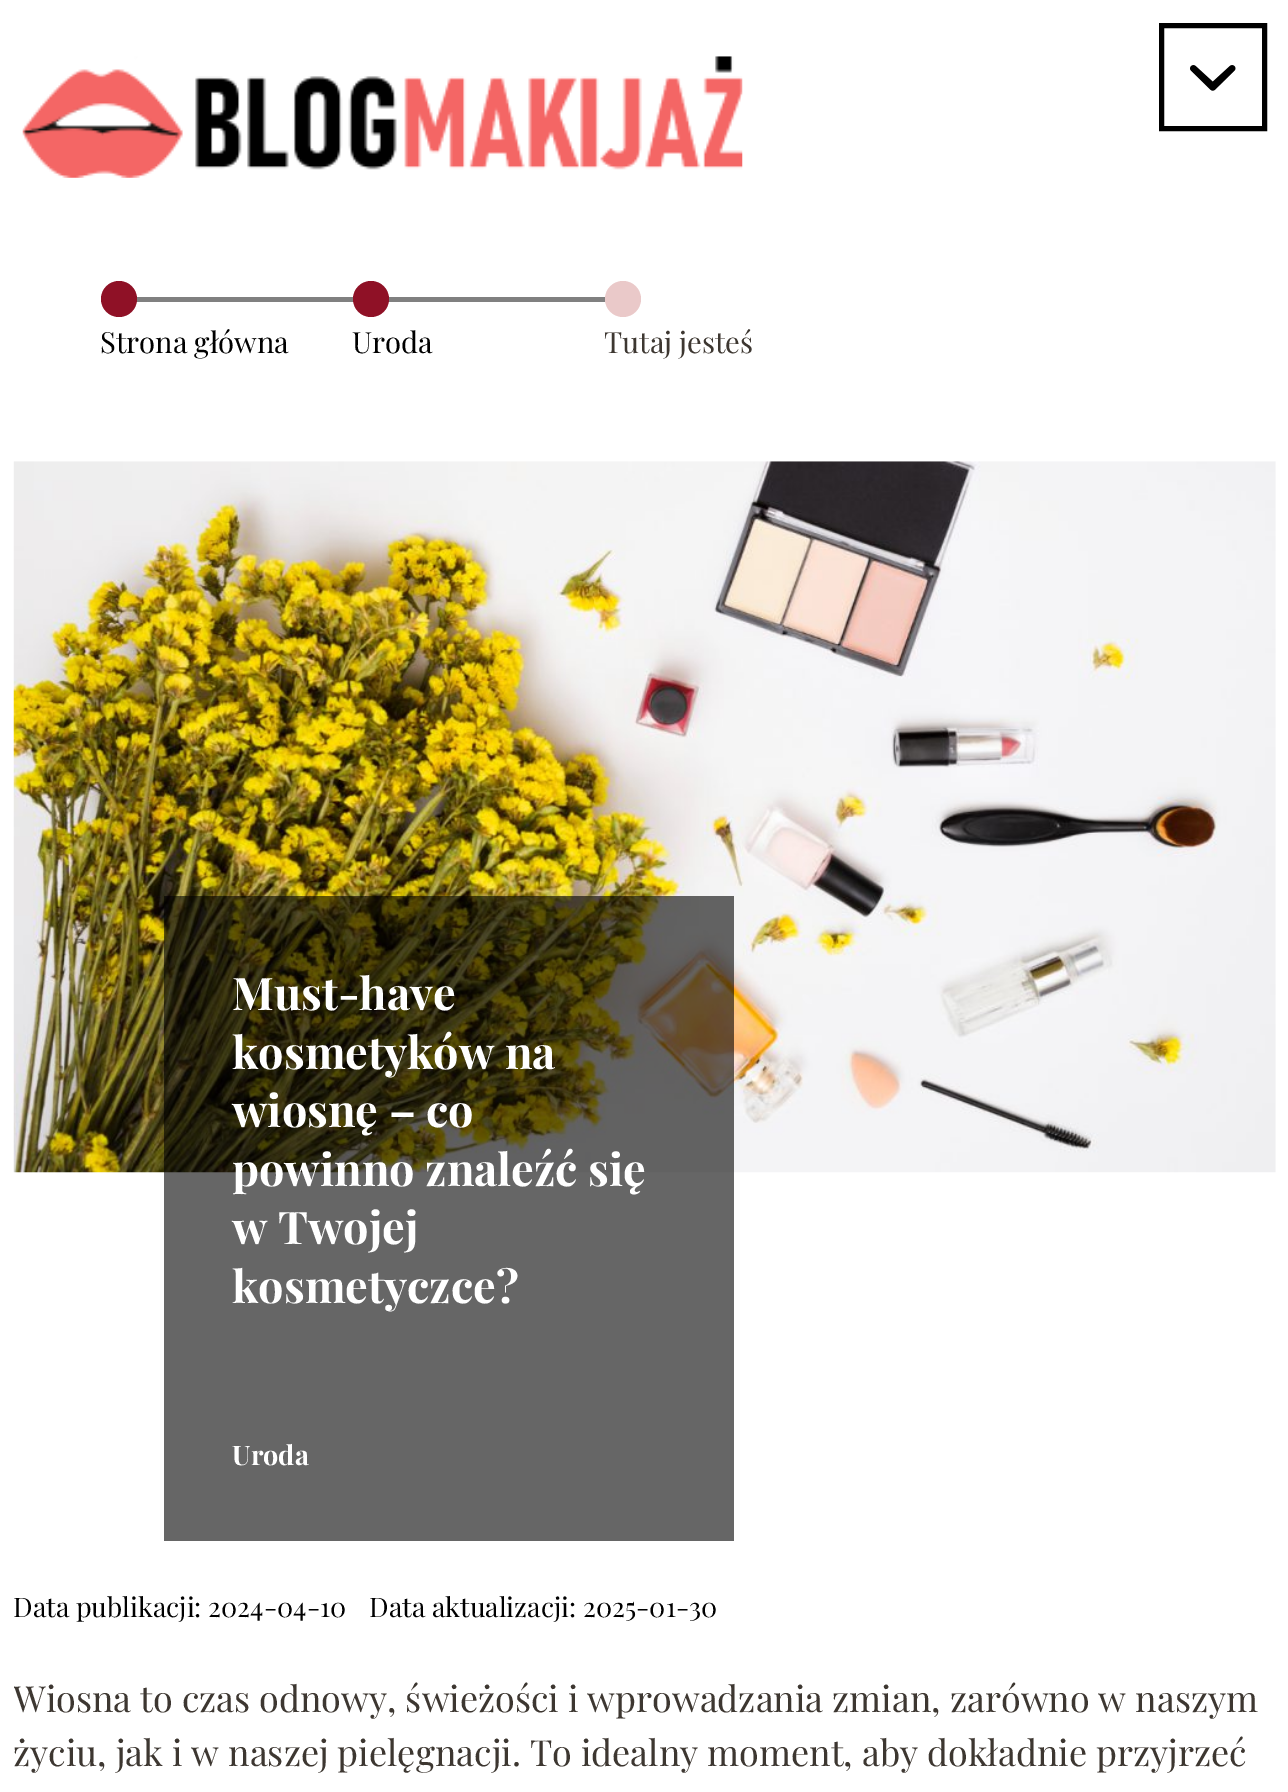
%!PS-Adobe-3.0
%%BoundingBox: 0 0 1288 1792
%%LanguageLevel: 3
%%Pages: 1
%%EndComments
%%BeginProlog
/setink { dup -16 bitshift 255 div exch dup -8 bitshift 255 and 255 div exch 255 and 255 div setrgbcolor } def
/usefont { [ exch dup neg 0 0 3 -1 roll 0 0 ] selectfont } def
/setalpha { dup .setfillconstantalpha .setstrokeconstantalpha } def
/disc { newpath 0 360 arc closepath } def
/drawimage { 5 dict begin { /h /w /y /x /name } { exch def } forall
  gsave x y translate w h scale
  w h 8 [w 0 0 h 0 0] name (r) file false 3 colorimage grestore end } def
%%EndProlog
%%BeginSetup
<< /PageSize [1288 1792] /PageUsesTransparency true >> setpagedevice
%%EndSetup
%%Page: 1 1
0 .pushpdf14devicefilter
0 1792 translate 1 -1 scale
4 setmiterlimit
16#FFFFFF setink
0 0 1288 1792 rectfill
(img1.raw) 22 56 721 122 drawimage
16#000000 setink
5 setlinewidth
1161.5 25.5 103 103 rectstroke
(img2.raw) 1190 65 46 26 drawimage
16#808080 setink
137 297 469 5 rectfill
16#8F1126 setink
119 299 18 disc fill
/PlayfairDisplay-Regular 29.25 usefont
16#000000 setink
100 353 moveto (Strona główna) show
16#8F1126 setink
371 299 18 disc fill
16#000000 setink
352 353 moveto (Uroda) show
16#EAC9C9 setink
623 299 18 disc fill
16#3D3731 setink
604 353 moveto (Tutaj jesteś) show
(img3.raw) 13 461 1263 712 drawimage
0.6 setalpha
16#000000 setink
164 896 570 645 rectfill
/PlayfairDisplay-Bold 45 usefont
1 setalpha
16#FFFFFF setink
[
    [(Must-have) 232 1010]
    [(kosmetyków na) 232 1069]
    [(wiosnę – co) 232 1127]
    [(powinno znaleźć się) 232 1186]
    [(w Twojej) 232 1244]
    [(kosmetyczce?) 232 1303]
] { aload pop moveto show } forall
/PlayfairDisplay-Bold 27 usefont
232 1465 moveto (Uroda) show
/PlayfairDisplay-Regular 27 usefont
16#000000 setink
13 1617 moveto (Data publikacji: 2024-04-10) show
369 1617 moveto (Data aktualizacji: 2025-01-30) show
gsave
14 389 1262 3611 rectclip
/PlayfairDisplay-Regular 36 usefont
16#3D3731 setink
13 1712 moveto (Wiosna to czas odnowy, świeżości i wprowadzania zmian, zarówno w naszym) show
grestore
/PlayfairDisplay-Regular 36 usefont
16#3D3731 setink
13 1766 moveto (życiu, jak i w naszej pielęgnacji. To idealny moment, aby dokładnie przyjrzeć) show
.poppdf14devicefilter showpage
%%EOF
